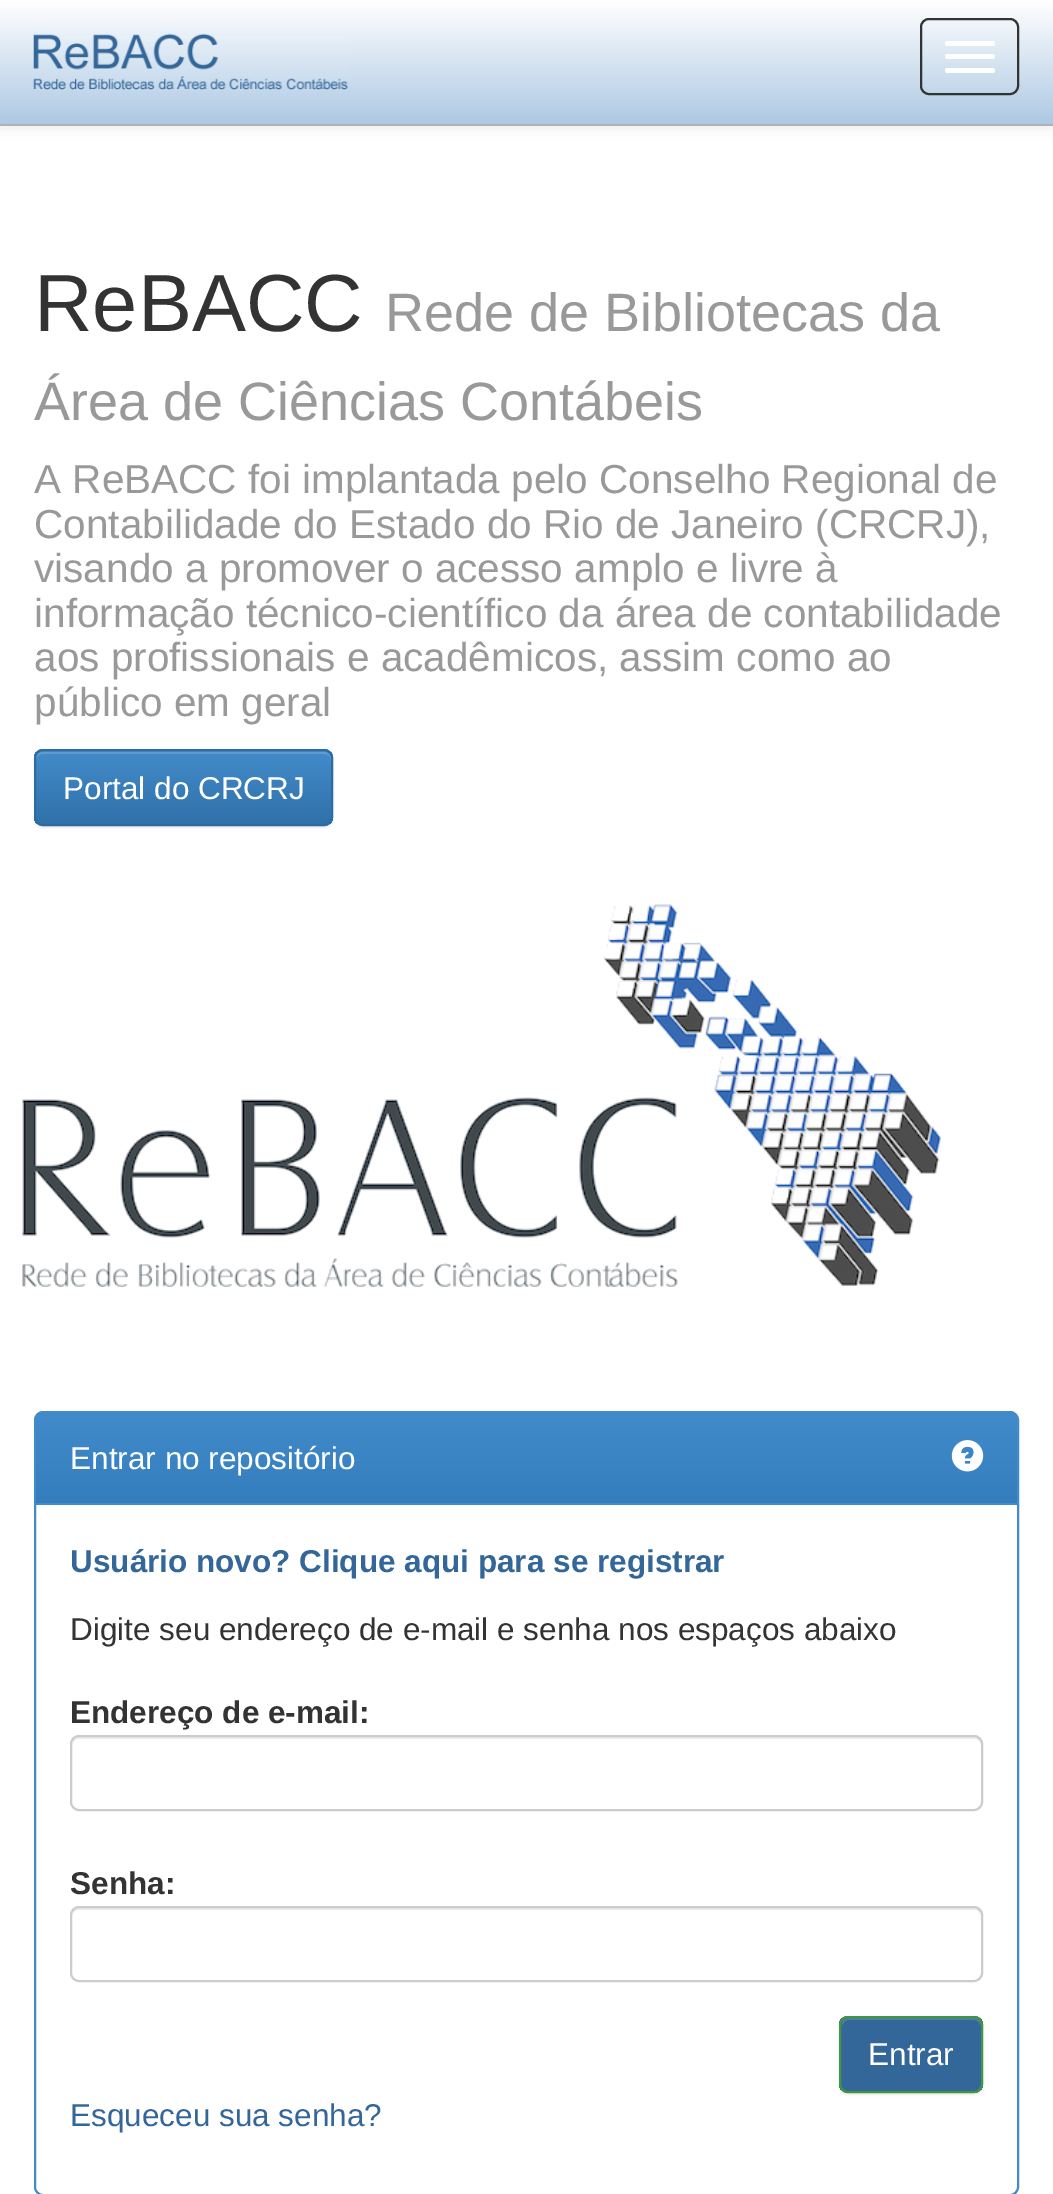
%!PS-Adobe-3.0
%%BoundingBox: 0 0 1053 2194
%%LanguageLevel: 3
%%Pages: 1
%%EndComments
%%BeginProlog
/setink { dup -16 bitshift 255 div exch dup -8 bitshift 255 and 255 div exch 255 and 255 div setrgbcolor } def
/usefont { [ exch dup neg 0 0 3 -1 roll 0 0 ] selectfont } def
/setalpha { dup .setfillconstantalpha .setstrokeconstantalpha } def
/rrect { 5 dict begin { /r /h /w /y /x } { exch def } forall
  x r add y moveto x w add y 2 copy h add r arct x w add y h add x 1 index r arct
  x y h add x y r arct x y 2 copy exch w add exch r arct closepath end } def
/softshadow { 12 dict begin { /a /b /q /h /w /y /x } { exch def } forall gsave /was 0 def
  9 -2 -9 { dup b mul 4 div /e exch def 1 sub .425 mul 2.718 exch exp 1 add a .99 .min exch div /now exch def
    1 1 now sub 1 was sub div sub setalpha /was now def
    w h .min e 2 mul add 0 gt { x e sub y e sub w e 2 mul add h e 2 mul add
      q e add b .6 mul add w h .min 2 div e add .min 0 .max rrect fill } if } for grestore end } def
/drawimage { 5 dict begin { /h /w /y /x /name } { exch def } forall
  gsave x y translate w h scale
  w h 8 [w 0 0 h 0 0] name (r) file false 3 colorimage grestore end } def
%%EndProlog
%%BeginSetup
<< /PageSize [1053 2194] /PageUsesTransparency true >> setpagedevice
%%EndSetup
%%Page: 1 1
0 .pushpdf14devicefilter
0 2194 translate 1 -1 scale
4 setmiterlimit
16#FFFFFF setink
0 0 1053 2194 rectfill
16#000000 setink
0 2 1053 126 0 5.5 0.07 softshadow
gsave 0 0 moveto 1053 0 lineto 1053 124 lineto 0 124 lineto closepath clip newpath
<< /ShadingType 2 /ColorSpace /DeviceRGB /Coords [527 0 527 124] /Extend [true true] /Function << /FunctionType 2 /Domain [0 1] /C0 [1 1 1] /C1 [0.682 0.788 0.894] /N 1 >> >> shfill grestore
16#B2B2B2 setink
0 124 1053 2 rectfill
(img1.raw) 33 33 315 57 drawimage
16#333333 setink
2 setlinewidth
921 19 97 75 8 rrect stroke
16#FFFFFF setink
945 41 50 5 2.5 rrect fill
945 54 50 5 2.5 rrect fill
945 68 50 5 2.5 rrect fill
/LiberationSans-Regular 81 usefont
16#333333 setink
34 331 moveto (ReBACC) show
/LiberationSans-Regular 54 usefont
16#999999 setink
385 331 moveto (Rede de Bibliotecas da) show
34 420 moveto (Área de Ciências Contábeis) show
/LiberationSans-Regular 40.5 usefont
[
    [(A ReBACC foi implantada pelo Conselho Regional de) 34 493]
    [(Contabilidade do Estado do Rio de Janeiro \(CRCRJ\),) 34 538]
    [(visando a promover o acesso amplo e livre à) 34 582]
    [(informação técnico-científico da área de contabilidade) 34 627]
    [(aos profissionais e acadêmicos, assim como ao) 34 671]
    [(público em geral) 34 716]
] { aload pop moveto show } forall
16#000000 setink
34 752 299 76 9 1 0.07 softshadow
16#428BCA setink
34 749 299 77 9 rrect fill
gsave
34 749 299 77 9 rrect clip newpath
gsave 34 752 moveto 333 752 lineto 333 824 lineto 34 824 lineto closepath clip newpath
<< /ShadingType 2 /ColorSpace /DeviceRGB /Coords [183 752 183 824] /Extend [true true] /Function << /FunctionType 2 /Domain [0 1] /C0 [0.259 0.545 0.792] /C1 [0.188 0.443 0.663] /N 1 >> >> shfill grestore
grestore
0.15 setalpha
16#FFFFFF setink
43 754 moveto 324 754 lineto 328 754 331 757 331 760 curveto 331 759 lineto 331 755 328 752 324 752 curveto 43 752 lineto 39 752 36 755 36 759 curveto 36 760 lineto 36 757 39 754 43 754 curveto closepath fill
1 setalpha
16#2D6CA2 setink
35 750 297 75 8 rrect stroke
/LiberationSans-Regular 31.5 usefont
16#FFFFFF setink
63 799 moveto (Portal do CRCRJ) show
(img2.raw) 22 904 919 383 drawimage
16#428BCA setink
35 1412 983 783 8 rrect stroke
43 1413 moveto 1010 1413 lineto 1014 1413 1017 1416 1017 1420 curveto 1017 1505 lineto 36 1505 lineto 36 1420 lineto 36 1416 39 1413 43 1413 curveto closepath fill
gsave 43 1413 moveto 1010 1413 lineto 1014 1413 1017 1416 1017 1420 curveto 1017 1503 lineto 36 1503 lineto 36 1420 lineto 36 1416 39 1413 43 1413 curveto closepath clip newpath
<< /ShadingType 2 /ColorSpace /DeviceRGB /Coords [527 1413 527 1503] /Extend [true true] /Function << /FunctionType 2 /Domain [0 1] /C0 [0.259 0.545 0.792] /C1 [0.208 0.494 0.741] /N 1 >> >> shfill grestore
16#FFFFFF setink
70 1469 moveto (Entrar no repositório) show
(img3.raw) 951 1440 33 32 drawimage
/LiberationSans-Bold 31.5 usefont
16#336699 setink
70 1572 moveto (Usuário novo? Clique aqui para se registrar) show
/LiberationSans-Regular 31.5 usefont
16#333333 setink
70 1640 moveto (Digite seu endereço de e-mail e senha nos espaços abaixo) show
/LiberationSans-Bold 31.5 usefont
70 1723 moveto (Endereço de e-mail:) show
16#ECECEC setink
79 1739 moveto 974 1739 lineto 978 1739 981 1742 981 1746 curveto 981 1742 979 1737 974 1737 curveto 79 1737 lineto 74 1737 72 1742 72 1746 curveto 72 1742 75 1739 79 1739 curveto closepath fill
16#CCCCCC setink
71 1736 911 74 8 rrect stroke
16#333333 setink
70 1894 moveto (Senha:) show
16#ECECEC setink
79 1910 moveto 974 1910 lineto 978 1910 981 1913 981 1917 curveto 981 1913 979 1908 974 1908 curveto 79 1908 lineto 74 1908 72 1913 72 1917 curveto 72 1913 75 1910 79 1910 curveto closepath fill
16#CCCCCC setink
71 1907 911 74 8 rrect stroke
16#000000 setink
839 2018 144 77 9 1 0.07 softshadow
16#336699 setink
839 2016 144 77 9 rrect fill
gsave
839 2016 144 77 9 rrect clip newpath
839 2018 144 72 rectfill
grestore
16#527DA8 setink
848 2020 moveto 974 2020 lineto 978 2020 981 2024 981 2027 curveto 981 2025 lineto 981 2021 978 2018 974 2018 curveto 849 2018 lineto 845 2018 842 2021 842 2025 curveto 842 2027 lineto 842 2024 845 2020 848 2020 curveto closepath fill
16#419641 setink
840 2017 142 75 8 rrect stroke
/LiberationSans-Regular 31.5 usefont
16#FFFFFF setink
868 2065 moveto (Entrar) show
16#336699 setink
70 2126 moveto (Esqueceu sua senha?) show
.poppdf14devicefilter showpage
%%EOF
